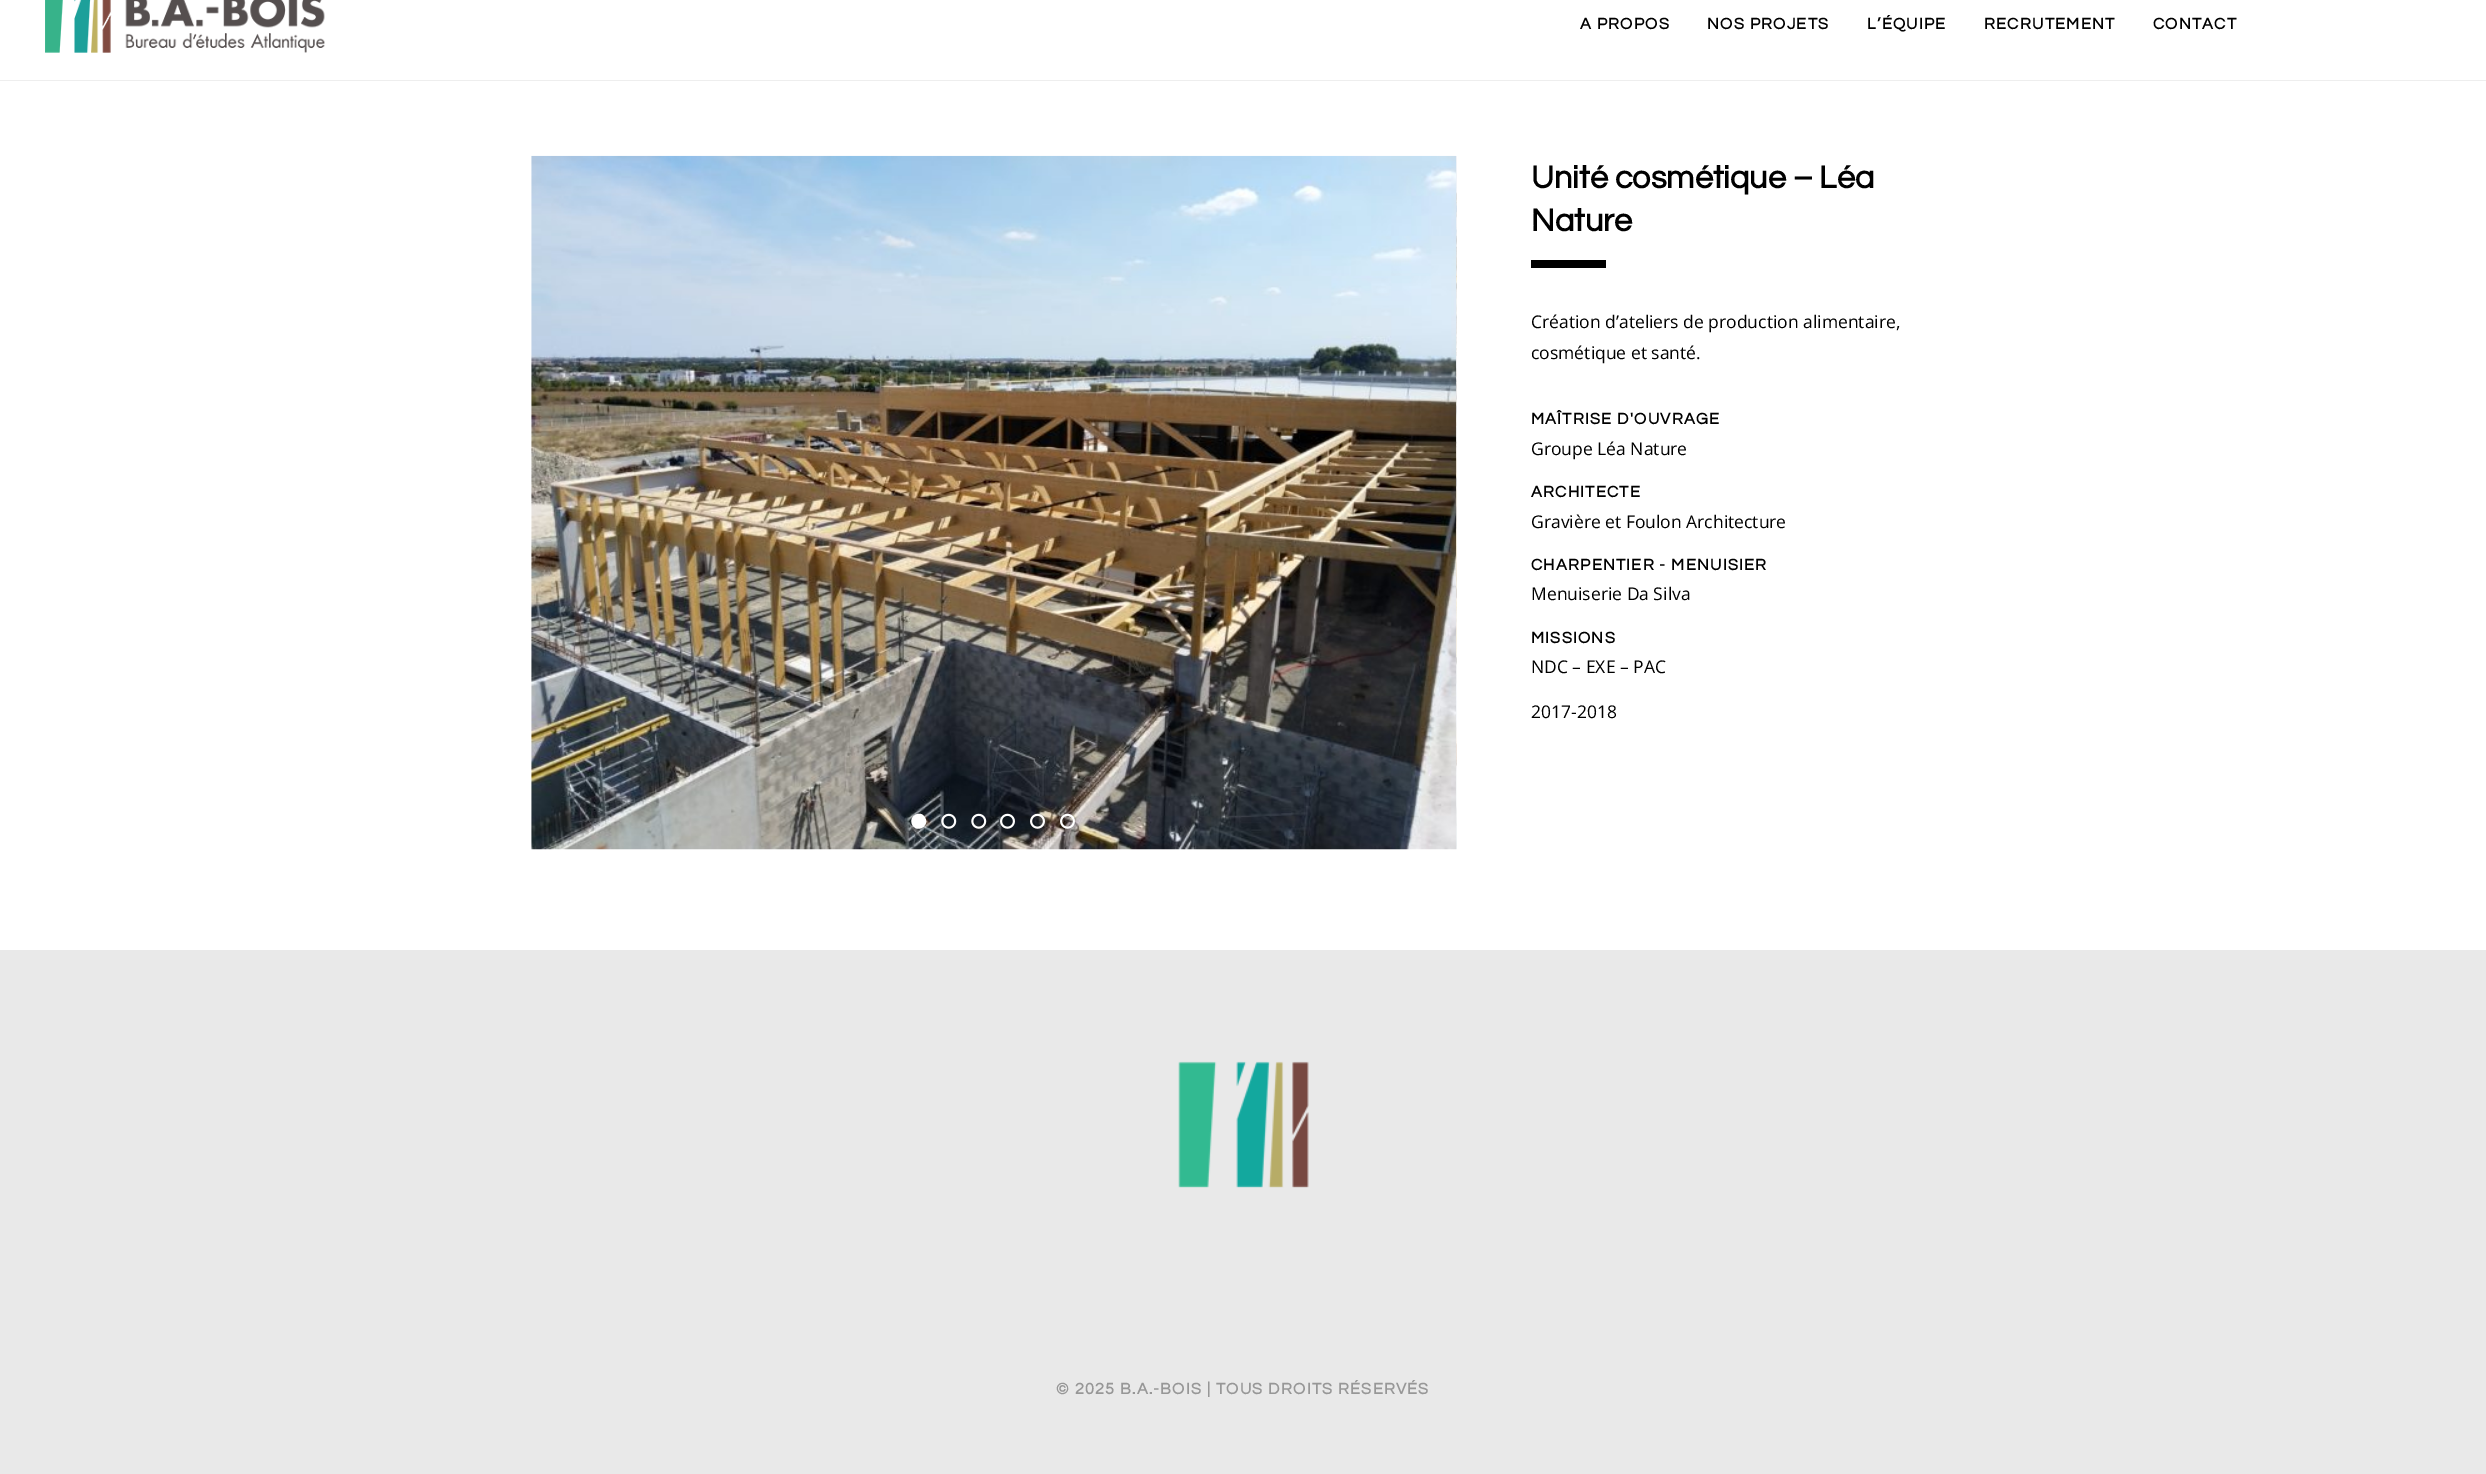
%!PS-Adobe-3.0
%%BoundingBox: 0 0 2486 1474
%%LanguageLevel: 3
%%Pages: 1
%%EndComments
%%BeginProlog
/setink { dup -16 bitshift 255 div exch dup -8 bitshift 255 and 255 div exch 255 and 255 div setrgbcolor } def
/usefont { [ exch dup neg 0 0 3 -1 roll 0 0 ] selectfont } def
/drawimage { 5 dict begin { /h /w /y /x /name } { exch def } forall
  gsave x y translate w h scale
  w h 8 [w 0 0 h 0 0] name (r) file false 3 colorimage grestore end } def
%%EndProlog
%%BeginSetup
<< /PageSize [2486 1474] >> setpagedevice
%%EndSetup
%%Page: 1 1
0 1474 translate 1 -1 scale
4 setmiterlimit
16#FFFFFF setink
0 0 2486 1474 rectfill
16#EEEEEE setink
0 80 2486 1 rectfill
(img1.raw) 45 0 280 53 drawimage
/Questrial-Bold 16.25 usefont
16#000000 setink
1580 29 moveto 1.25 0 (A PROPOS) ashow
1707 29 moveto 1.25 0 (NOS PROJETS) ashow
1867 29 moveto 1.25 0 (L’ÉQUIPE) ashow
1984 29 moveto 1.25 0 (RECRUTEMENT) ashow
2153 29 moveto 1.25 0 (CONTACT) ashow
(img2.raw) 531 155 926 695 drawimage
(img3.raw) 1456 156 1 694 drawimage
16#FFFFFF setink
912.5 825 moveto 907.5 816.5 920.5 809 925 817.5 curveto 930 826 917 833.5 912.5 825 curveto closepath fill
(img4.raw) 941 813 16 16 drawimage
(img5.raw) 971 813 16 16 drawimage
(img6.raw) 1000 813 15 16 drawimage
(img7.raw) 1030 813 15 16 drawimage
(img8.raw) 1060 813 15 16 drawimage
/Questrial-Bold 32.5 usefont
16#000000 setink
1531 188 moveto (Unité cosmétique – Léa) show
1531 231 moveto (Nature) show
1531 260 75 8 rectfill
/OpenSans-Regular 17.5 usefont
1531 328 moveto (Création d’ateliers de production alimentaire,) show
1531 359 moveto (cosmétique et santé.) show
/Questrial-Bold 16.25 usefont
1531 424 moveto 1.25 0 (MAÎTRISE D'OUVRAGE) ashow
/OpenSans-Regular 17.5 usefont
1531 455 moveto (Groupe Léa Nature) show
/Questrial-Bold 16.25 usefont
1531 497 moveto 1.25 0 (ARCHITECTE) ashow
/OpenSans-Regular 17.5 usefont
1531 528 moveto (Gravière et Foulon Architecture) show
/Questrial-Bold 16.25 usefont
1531 570 moveto 1.25 0 (CHARPENTIER - MENUISIER) ashow
/OpenSans-Regular 17.5 usefont
1531 600 moveto (Menuiserie Da Silva) show
/Questrial-Bold 16.25 usefont
1531 643 moveto 1.25 0 (MISSIONS) ashow
/OpenSans-Regular 17.5 usefont
1531 673 moveto (NDC – EXE – PAC) show
1531 718 moveto (2017-2018) show
16#E9E9E9 setink
0 950 2486 524 rectfill
(img9.raw) 1178 1061 131 127 drawimage
/Questrial-Bold 16.25 usefont
16#979797 setink
1056 1394 moveto 1.25 0 (© 2025 B.A.-BOIS | TOUS DROITS RÉSERVÉS) ashow
showpage
%%EOF
